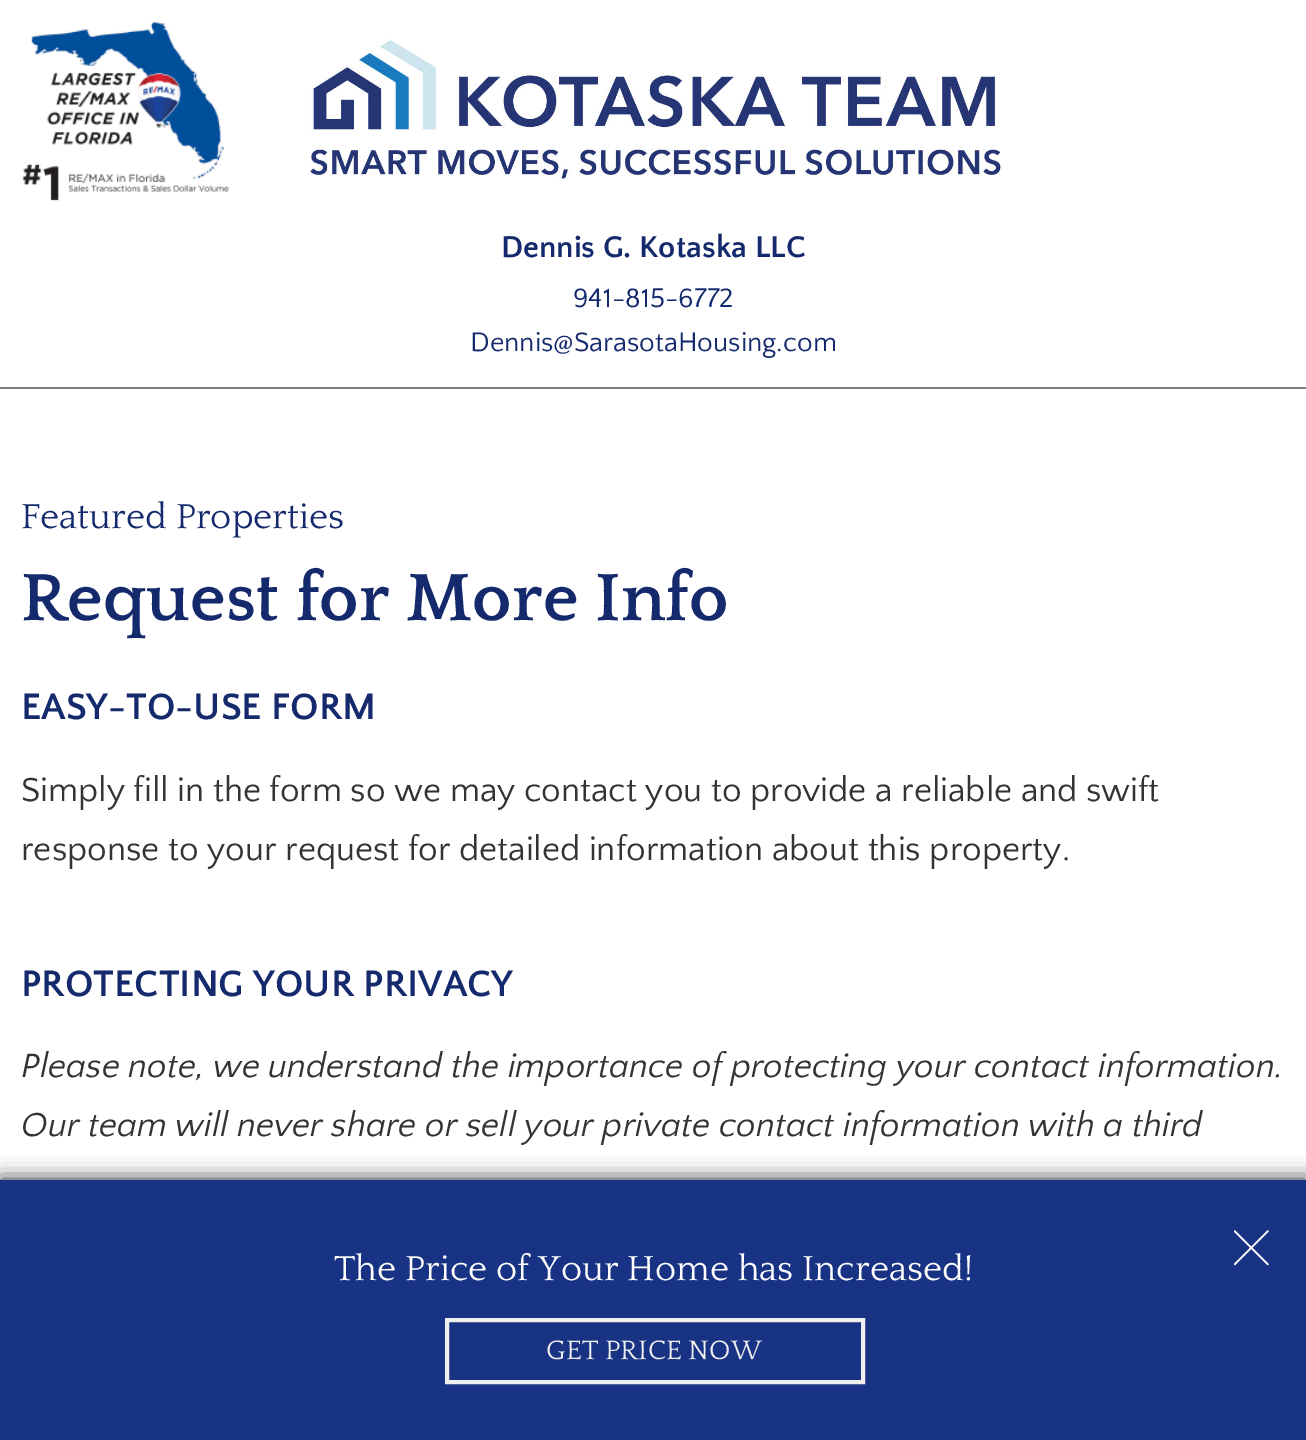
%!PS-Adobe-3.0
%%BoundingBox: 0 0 1306 1440
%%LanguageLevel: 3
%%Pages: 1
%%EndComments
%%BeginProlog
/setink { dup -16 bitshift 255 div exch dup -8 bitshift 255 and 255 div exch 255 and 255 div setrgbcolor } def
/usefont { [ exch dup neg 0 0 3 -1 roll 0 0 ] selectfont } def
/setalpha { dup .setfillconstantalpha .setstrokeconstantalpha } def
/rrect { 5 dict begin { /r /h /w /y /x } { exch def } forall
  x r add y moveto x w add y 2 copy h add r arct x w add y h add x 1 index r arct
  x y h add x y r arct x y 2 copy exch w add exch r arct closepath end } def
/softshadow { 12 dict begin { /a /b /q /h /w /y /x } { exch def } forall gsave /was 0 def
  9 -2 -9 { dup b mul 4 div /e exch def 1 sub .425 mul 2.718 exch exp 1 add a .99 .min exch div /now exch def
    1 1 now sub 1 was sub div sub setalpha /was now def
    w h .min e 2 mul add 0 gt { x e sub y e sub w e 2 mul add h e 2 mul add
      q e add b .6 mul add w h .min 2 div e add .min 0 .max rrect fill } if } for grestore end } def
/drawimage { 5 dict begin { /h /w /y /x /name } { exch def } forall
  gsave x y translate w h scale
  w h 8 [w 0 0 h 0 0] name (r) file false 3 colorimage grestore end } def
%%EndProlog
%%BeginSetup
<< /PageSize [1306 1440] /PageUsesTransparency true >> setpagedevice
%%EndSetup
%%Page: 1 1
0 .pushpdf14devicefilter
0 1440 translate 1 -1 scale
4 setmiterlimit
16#FFFFFF setink
0 0 1306 1440 rectfill
16#808080 setink
0 387 1306 2 rectfill
(img1.raw) 22 22 207 179 drawimage
(img2.raw) 310 37 693 143 drawimage
/QuattrocentoSans-Bold 31.5 usefont
16#142A6C setink
501 257 moveto (Dennis G. Kotaska LLC) show
/QuattrocentoSans-Regular 28 usefont
573 307 moveto (941-815-6772) show
470 351 moveto (Dennis@SarasotaHousing.com) show
/Quattrocento-Regular 36.4 usefont
21 528 moveto (Featured Properties) show
/Quattrocento-Bold 70 usefont
21 620 moveto (Request for More Info) show
/QuattrocentoSans-Bold 38.5 usefont
21 719 moveto (EASY-TO-USE FORM) show
/QuattrocentoSans-Regular 35 usefont
16#333333 setink
21 801 moveto (Simply fill in the form so we may contact you to provide a reliable and swift) show
21 860 moveto (response to your request for detailed information about this property.) show
/QuattrocentoSans-Bold 38.5 usefont
16#142A6C setink
21 996 moveto (PROTECTING YOUR PRIVACY) show
/QuattrocentoSans-Italic 35 usefont
16#333333 setink
21 1077 moveto (Please note, we understand the importance of protecting your contact information.) show
21 1136 moveto (Our team will never share or sell your private contact information with a third) show
16#222222 setink
0 1180 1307 260 0 10.5 1 softshadow
16#183384 setink
0 1180 1306 260 rectfill
(img3.raw) 1234 1230 35 36 drawimage
/Quattrocento-Regular 36.4 usefont
16#FFFFFF setink
334 1280 moveto (The Price of Your Home has Increased!) show
16#EFEFEF setink
4 setlinewidth
447 1320 416 62 rectstroke
/Quattrocento-Regular 28 usefont
546 1359 moveto (GET PRICE NOW) show
.poppdf14devicefilter showpage
%%EOF
